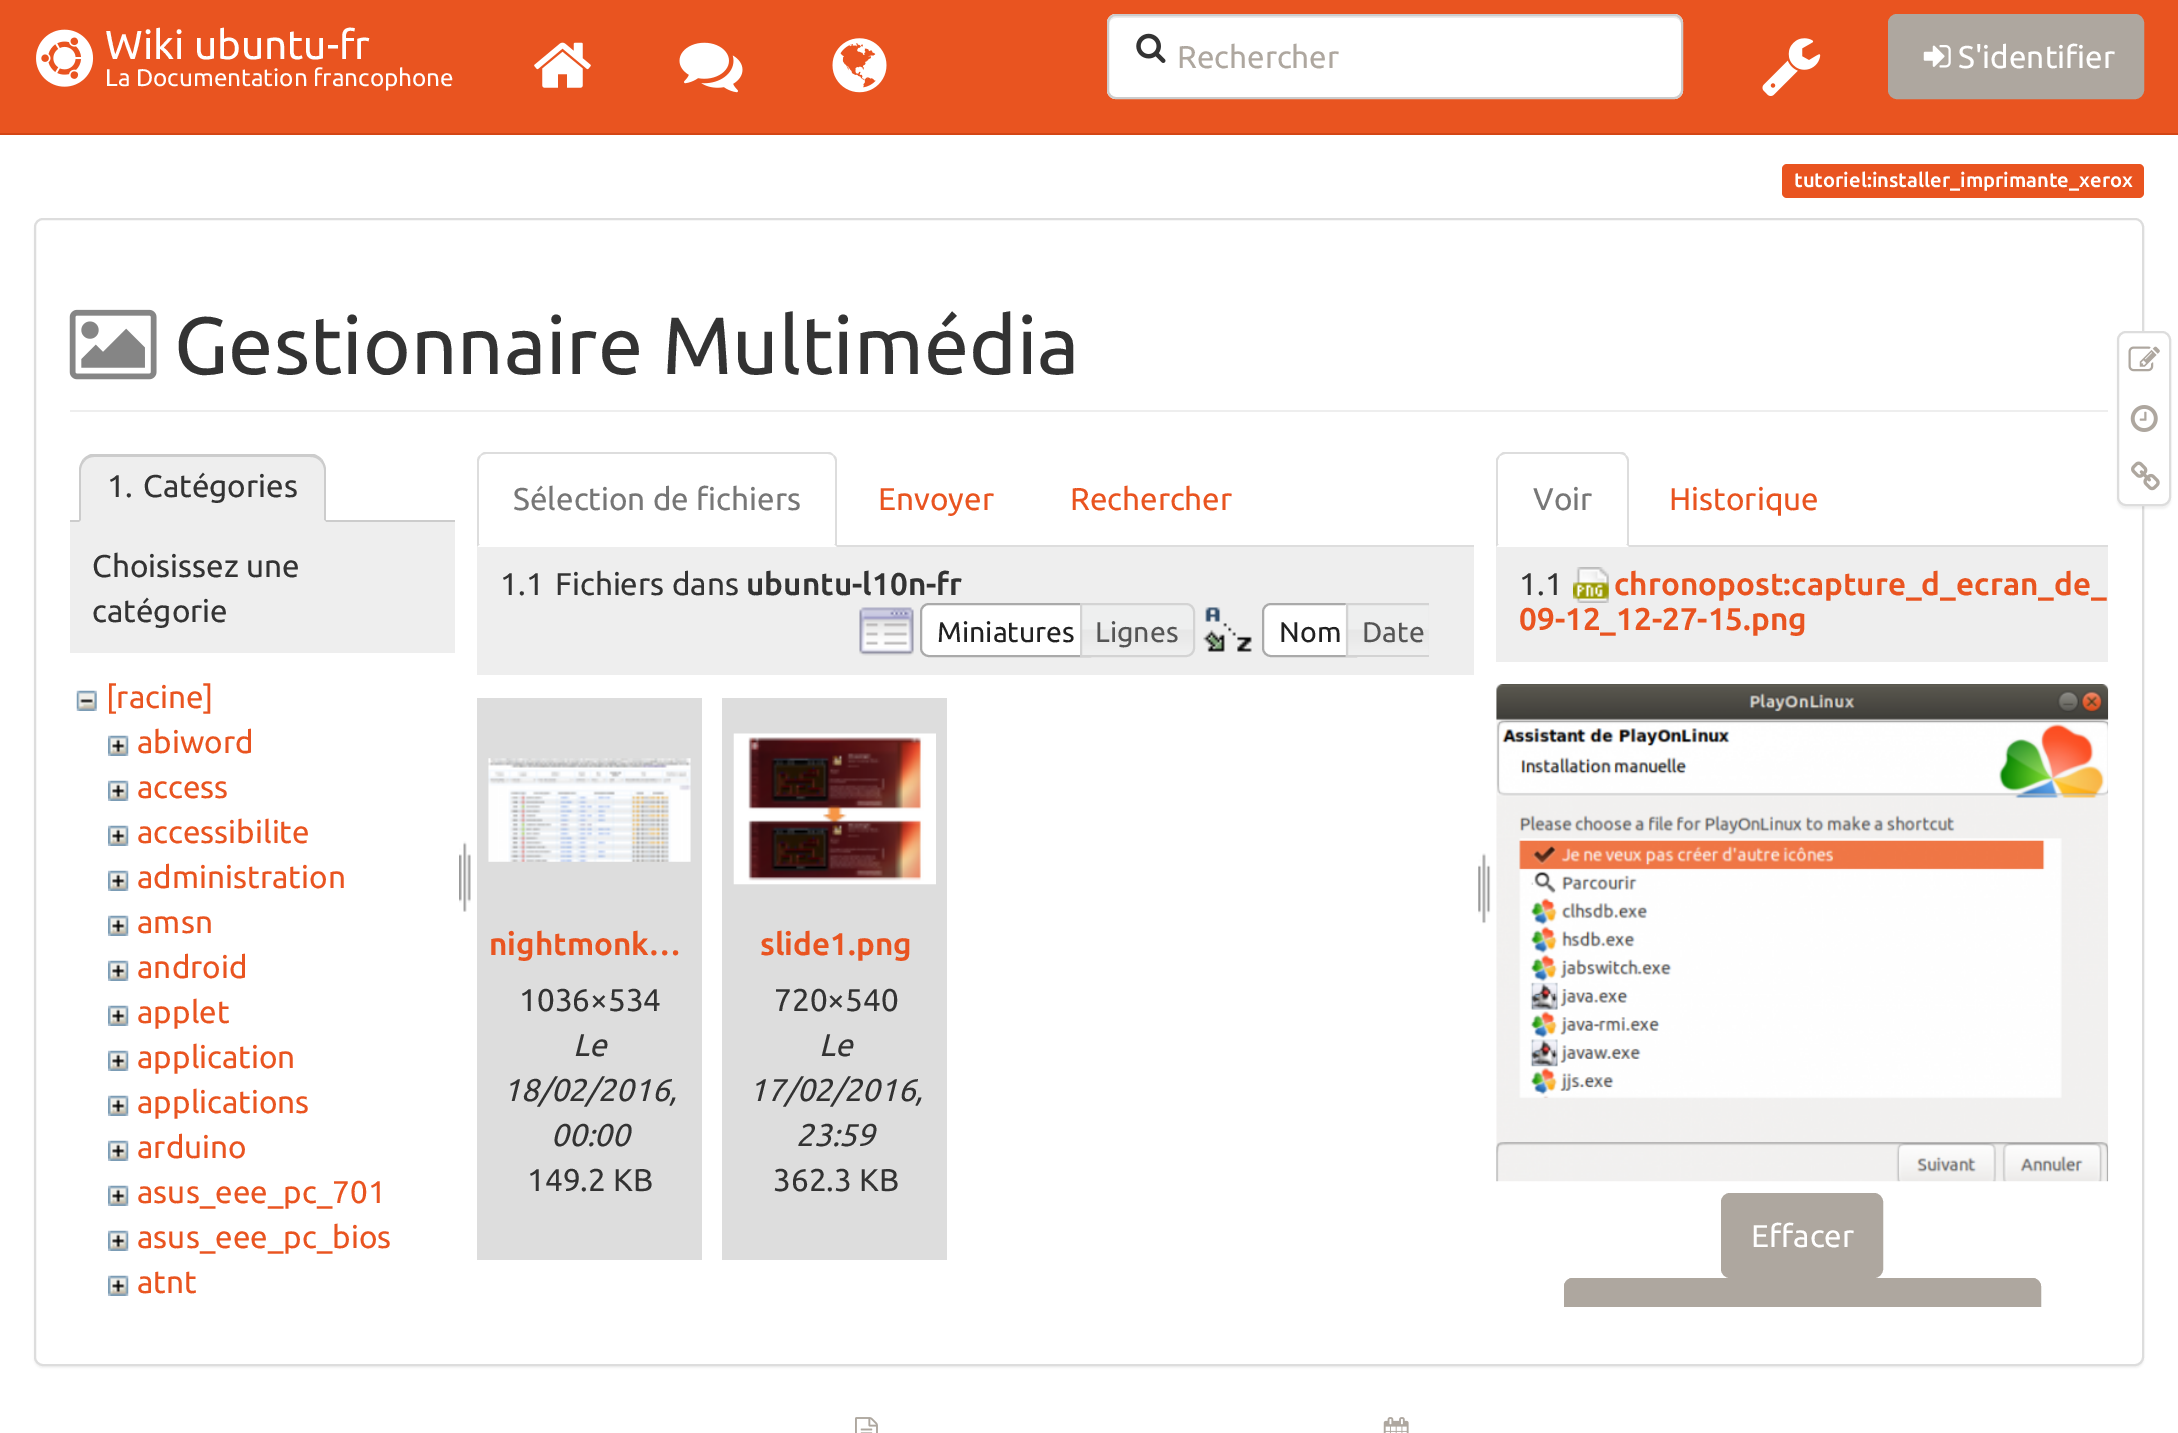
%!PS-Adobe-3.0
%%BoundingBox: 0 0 2178 1433
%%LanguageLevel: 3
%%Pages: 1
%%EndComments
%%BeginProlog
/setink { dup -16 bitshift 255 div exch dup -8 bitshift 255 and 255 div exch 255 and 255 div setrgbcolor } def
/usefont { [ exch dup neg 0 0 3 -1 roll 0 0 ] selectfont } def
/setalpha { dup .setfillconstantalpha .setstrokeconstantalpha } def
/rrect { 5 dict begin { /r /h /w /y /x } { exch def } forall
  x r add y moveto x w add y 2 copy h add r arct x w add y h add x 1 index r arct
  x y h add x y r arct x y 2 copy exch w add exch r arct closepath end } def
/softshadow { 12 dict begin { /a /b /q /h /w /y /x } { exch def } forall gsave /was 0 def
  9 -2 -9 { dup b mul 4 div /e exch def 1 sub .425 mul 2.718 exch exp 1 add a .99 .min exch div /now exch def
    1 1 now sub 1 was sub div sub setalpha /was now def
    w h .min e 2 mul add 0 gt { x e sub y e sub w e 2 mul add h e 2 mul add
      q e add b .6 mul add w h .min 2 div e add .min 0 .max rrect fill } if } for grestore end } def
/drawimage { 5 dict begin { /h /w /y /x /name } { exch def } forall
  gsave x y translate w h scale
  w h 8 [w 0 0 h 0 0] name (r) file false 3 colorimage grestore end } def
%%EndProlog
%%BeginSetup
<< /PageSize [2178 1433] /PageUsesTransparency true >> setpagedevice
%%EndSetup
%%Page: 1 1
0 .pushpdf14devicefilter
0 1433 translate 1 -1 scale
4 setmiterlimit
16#FFFFFF setink
0 0 2178 1433 rectfill
16#E95420 setink
0 0 2178 133 rectfill
16#D34615 setink
0 133 2178 2 rectfill
(img1.raw) 36 29 58 58 drawimage
/Ubuntu-Regular 40.5 usefont
16#FFFFFF setink
105 59 moveto (Wiki ubuntu-fr) show
/Ubuntu-Regular 24.25 usefont
105 86 moveto (La Documentation francophone) show
(img2.raw) 534 42 57 46 drawimage
(img3.raw) 679 42 64 51 drawimage
(img4.raw) 832 38 55 55 drawimage
1107 14 576 85 9 rrect fill
16#ECECEC setink
1116 18 moveto 1674 18 lineto 1678 18 1681 21 1681 25 curveto 1681 23 lineto 1681 19 1678 16 1674 16 curveto 1116 16 lineto 1112 16 1109 19 1109 23 curveto 1109 25 lineto 1109 21 1112 18 1116 18 curveto closepath fill
16#CCCCCC setink
2 setlinewidth
1108 15 574 83 8 rrect stroke
(img5.raw) 1136 33 30 30 drawimage
/Ubuntu-Regular 31.5 usefont
16#AEA79F setink
1177 68 moveto (Rechercher) show
(img6.raw) 1762 38 59 58 drawimage
1889 15 254 83 8 rrect gsave fill grestore
stroke
(img7.raw) 1923 45 28 23 drawimage
16#FFFFFF setink
1958 68 moveto (S'identifier) show
16#E95420 setink
1782 164 362 34 5 rrect fill
/Ubuntu-Bold 20.1 usefont
16#FFFFFF setink
1794 187 moveto (tutoriel:installer_imprimante_xerox) show
16#000000 setink
34 221 2110 1147 9 1 0.05 softshadow
16#FFFFFF setink
35 219 2108 1146 8 rrect gsave fill grestore
16#DDDDDD setink
stroke
16#EEEEEE setink
70 410 2038 2 rectfill
(img8.raw) 69 309 88 71 drawimage
/Ubuntu-Regular 81 usefont
16#333333 setink
174 374 moveto (Gestionnaire Multimédia) show
16#CCCCCC setink
70 520 385 2 rectfill
16#EEEEEE setink
95 455 moveto 310 455 lineto 319 455 326 462 326 471 curveto 326 522 lineto 79 522 lineto 79 471 lineto 79 462 86 455 95 455 curveto closepath fill
16#CCCCCC setink
94 457 moveto 91 457 87 458 85 461 curveto 83 459 lineto 85 457 88 455 91 454 curveto 314 454 lineto 317 455 320 457 322 459 curveto 320 461 lineto 317 458 314 457 310 457 curveto closepath fill
322 459 moveto 324 462 326 466 326 470 curveto 326 522 lineto 324 520 lineto 324 470 lineto 324 466 322 463 320 461 curveto closepath fill
16#EEEEEE setink
79 522 moveto 326 522 lineto 324 520 lineto 81 520 lineto closepath fill
16#CCCCCC setink
79 522 moveto 79 470 lineto 79 466 81 462 83 459 curveto 85 461 lineto 83 463 81 466 81 470 curveto 81 520 lineto closepath fill
/Ubuntu-Regular 31.5 usefont
16#333333 setink
107 497 moveto (1.) show
143 497 moveto (Catégories) show
16#EEEEEE setink
70 522 385 131 rectfill
16#333333 setink
92 577 moveto (Choisissez une) show
92 622 moveto (catégorie) show
(img9.raw) 76 690 21 21 drawimage
16#E95420 setink
106 708 moveto ([racine]) show
(img10.raw) 108 735 21 21 drawimage
137 753 moveto (abiword) show
(img10.raw) 108 780 21 21 drawimage
137 798 moveto (access) show
(img11.raw) 108 825 21 21 drawimage
137 843 moveto (accessibilite) show
(img10.raw) 108 870 21 21 drawimage
137 888 moveto (administration) show
(img10.raw) 108 915 21 21 drawimage
137 933 moveto (amsn) show
(img10.raw) 108 960 21 21 drawimage
137 978 moveto (android) show
(img10.raw) 108 1005 21 21 drawimage
137 1023 moveto (applet) show
(img10.raw) 108 1050 21 21 drawimage
137 1068 moveto (application) show
(img10.raw) 108 1095 21 21 drawimage
137 1113 moveto (applications) show
(img10.raw) 108 1140 21 21 drawimage
137 1158 moveto (arduino) show
(img10.raw) 108 1185 21 21 drawimage
137 1203 moveto (asus_eee_pc_701) show
(img10.raw) 108 1230 21 21 drawimage
137 1248 moveto (asus_eee_pc_bios) show
(img10.raw) 108 1275 21 21 drawimage
137 1293 moveto (atnt) show
(img12.raw) 459 841 12 71 drawimage
16#DDDDDD setink
837 545 637 2 rectfill
486 454 moveto 484 454 482 455 481 456 curveto 480 455 lineto 481 454 482 453 484 452 curveto 830 452 lineto 832 453 833 454 834 455 curveto 833 456 lineto 832 455 830 454 828 454 curveto closepath fill
837 547 moveto 837 461 lineto 837 459 836 456 834 455 curveto 833 456 lineto 834 458 835 459 835 461 curveto 835 544 lineto 834 544 lineto closepath fill
477 547 moveto 480 544 lineto 479 544 lineto 479 461 lineto 479 459 480 458 481 456 curveto 480 455 lineto 478 456 477 459 477 461 curveto closepath fill
16#777777 setink
513 510 moveto (Sélection de fichiers) show
16#E95420 setink
878 510 moveto (Envoyer) show
1070 510 moveto (Rechercher) show
16#EEEEEE setink
477 547 997 128 rectfill
16#333333 setink
500 595 moveto (1.1) show
555 595 moveto (Fichiers dans) show
/Ubuntu-Bold 31.5 usefont
746 595 moveto (ubuntu-l10n-fr) show
(img13.raw) 859 607 55 49 drawimage
16#FFFFFF setink
929 604 moveto 1090 604 lineto 1090 656 lineto 929 656 lineto 924.5 656 921 652.5 921 648 curveto 921 612 lineto 921 607.5 924.5 604 929 604 curveto closepath gsave fill grestore
16#AAAAAA setink
stroke
/Ubuntu-Regular 28.5 usefont
16#212121 setink
937 642 moveto (Miniatures) show
(img14.raw) 1082 603 113 54 drawimage
16#D3D3D3 setink
1081 604 moveto 1186 604 lineto 1190.5 604 1194 607.5 1194 612 curveto 1194 648 lineto 1194 652.5 1190.5 656 1186 656 curveto 1081 656 lineto closepath stroke
16#555555 setink
1095 642 moveto (Lignes) show
(img15.raw) 1203 607 49 45 drawimage
16#FFFFFF setink
1271 604 moveto 1356 604 lineto 1356 656 lineto 1271 656 lineto 1266.5 656 1263 652.5 1263 648 curveto 1263 612 lineto 1263 607.5 1266.5 604 1271 604 curveto closepath gsave fill grestore
16#AAAAAA setink
stroke
16#212121 setink
1279 642 moveto (Nom) show
(img16.raw) 1345 603 84 54 drawimage
gsave
842 603 587 54 rectclip
16#D3D3D3 setink
1347 604 moveto 1431 604 lineto 1435.5 604 1439 607.5 1439 612 curveto 1439 648 lineto 1439 652.5 1435.5 656 1431 656 curveto 1347 656 lineto closepath stroke
grestore
16#555555 setink
1362 642 moveto (Date) show
(img17.raw) 1478 853 13 71 drawimage
16#DDDDDD setink
477 698 225 562 rectfill
(img18.raw) 488 758 203 104 drawimage
/Ubuntu-Bold 31.5 usefont
16#E95420 setink
489 955 moveto (nightmonk…) show
/Ubuntu-Regular 31.5 usefont
16#333333 setink
519 1011 moveto (1036×534) show
/Ubuntu-Italic 31.5 usefont
[
    [(Le) 573 1056]
    [(18/02/2016,) 503 1101]
    [(00:00) 551 1146]
] { aload pop moveto show } forall
/Ubuntu-Regular 31.5 usefont
527 1191 moveto (149.2 KB) show
16#DDDDDD setink
722 698 225 562 rectfill
(img19.raw) 733 733 203 152 drawimage
/Ubuntu-Bold 31.5 usefont
16#E95420 setink
760 955 moveto (slide1.png) show
/Ubuntu-Regular 31.5 usefont
16#333333 setink
774 1011 moveto (720×540) show
/Ubuntu-Italic 31.5 usefont
[
    [(Le) 819 1056]
    [(17/02/2016,) 749 1101]
    [(23:59) 796 1146]
] { aload pop moveto show } forall
/Ubuntu-Regular 31.5 usefont
773 1191 moveto (362.3 KB) show
16#DDDDDD setink
1629 545 479 2 rectfill
1505 454 moveto 1504 454 1502 455 1500 456 curveto 1499 455 lineto 1503 452 lineto 1622 452 lineto 1624 452 1626 454 1626 455 curveto 1625 456 lineto 1624 455 1622 454 1620 454 curveto closepath fill
1629 547 moveto 1629 461 lineto 1629 459 1628 456 1626 455 curveto 1625 456 lineto 1626 458 1627 459 1627 461 curveto 1627 544 lineto 1626 544 lineto closepath fill
1496 547 moveto 1496 459 lineto 1499 455 lineto 1500 456 lineto 1498 460 lineto 1498 544 lineto 1499 544 lineto closepath fill
16#777777 setink
1533 510 moveto (Voir) show
16#E95420 setink
1669 510 moveto (Historique) show
16#EEEEEE setink
1496 547 612 115 rectfill
16#333333 setink
1519 595 moveto (1.1) show
(img20.raw) 1573 567 36 36 drawimage
/Ubuntu-Bold 31.5 usefont
16#E95420 setink
1614 595 moveto (chronopost:capture_d_ecran_de_) show
1519 630 moveto (09-12_12-27-15.png) show
(img21.raw) 1496 684 613 498 drawimage
16#AEA79F setink
1722 1194 160 83 8 rrect gsave fill grestore
stroke
/Ubuntu-Regular 31.5 usefont
16#FFFFFF setink
1751 1247 moveto (Effacer) show
16#AEA79F setink
1573 1278 moveto 2032 1278 lineto 2037 1278 2041 1282 2041 1287 curveto 2041 1307 lineto 1564 1307 lineto 1564 1287 lineto 1564 1282 1568 1278 1573 1278 curveto closepath fill
gsave
1496 1193 612 114 rectclip
1565 1279 475 84 8 rrect stroke
grestore
16#000000 setink
2117 333 54 176 9 1 0.05 softshadow
16#FFFFFF setink
2118 332 52 173 8 rrect gsave fill grestore
16#DDDDDD setink
stroke
(img22.raw) 2128 346 32 26 drawimage
(img23.raw) 2130 405 28 27 drawimage
(img24.raw) 2131 461 29 30 drawimage
(img25.raw) 855 1417 23 16 drawimage
(img26.raw) 1383 1417 26 16 drawimage
.poppdf14devicefilter showpage
%%EOF
